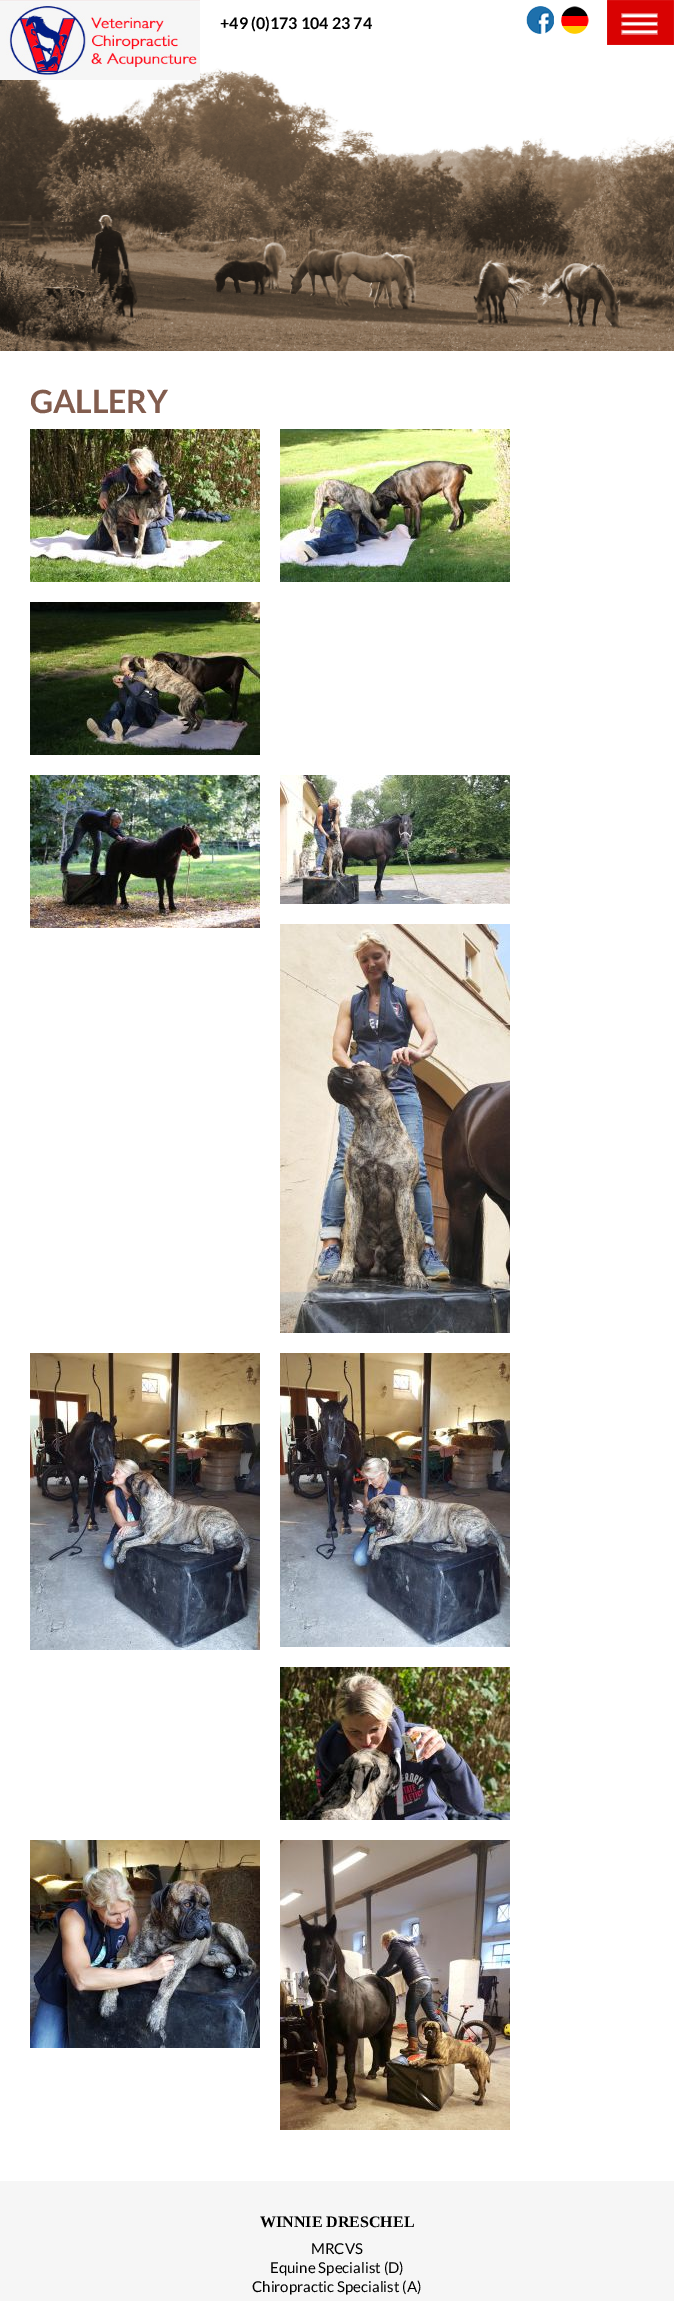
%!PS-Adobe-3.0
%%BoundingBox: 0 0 674 2301
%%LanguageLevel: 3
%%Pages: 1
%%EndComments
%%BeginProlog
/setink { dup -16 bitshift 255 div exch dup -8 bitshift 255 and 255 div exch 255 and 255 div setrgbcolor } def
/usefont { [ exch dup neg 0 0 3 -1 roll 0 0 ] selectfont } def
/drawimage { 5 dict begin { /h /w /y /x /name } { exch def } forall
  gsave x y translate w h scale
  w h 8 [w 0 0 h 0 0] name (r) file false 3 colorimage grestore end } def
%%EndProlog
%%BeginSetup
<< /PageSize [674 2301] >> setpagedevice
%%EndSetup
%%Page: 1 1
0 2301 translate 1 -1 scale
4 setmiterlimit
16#FFFFFF setink
0 0 674 2301 rectfill
(img5.raw) 0 62 674 289 drawimage
(img1.raw) 0 0 200 80 drawimage
/Lato-Bold 16 usefont
16#000000 setink
220 29 moveto (+49 \(0\)173 104 23 74) show
(img2.raw) 526 6 28 28 drawimage
(img3.raw) 561 6 28 28 drawimage
(img4.raw) 607 0 67 45 drawimage
/Lato-Bold 32 usefont
16#825D4E setink
30 413 moveto -0.25 0 (GALLERY) ashow
(img6.raw) 30 429 230 153 drawimage
(img7.raw) 280 429 230 153 drawimage
(img8.raw) 30 602 230 153 drawimage
(img9.raw) 30 775 230 153 drawimage
(img10.raw) 280 775 230 129 drawimage
(img11.raw) 280 924 230 409 drawimage
(img12.raw) 30 1353 230 297 drawimage
(img13.raw) 280 1353 230 294 drawimage
(img14.raw) 280 1667 230 153 drawimage
(img15.raw) 30 1840 230 208 drawimage
(img16.raw) 280 1840 230 290 drawimage
16#F6F6F6 setink
0 2181 674 120 rectfill
/LiberationSerif-Bold 16 usefont
16#000000 setink
260 2227 moveto (WINNIE DRESCHEL) show
/Lato-Regular 15 usefont
[
    [(MRCVS) 311 2254]
    [(Equine Specialist \(D\)) 270 2273]
    [(Chiropractic Specialist \(A\)) 252 2292]
] { aload pop moveto show } forall
showpage
%%EOF
